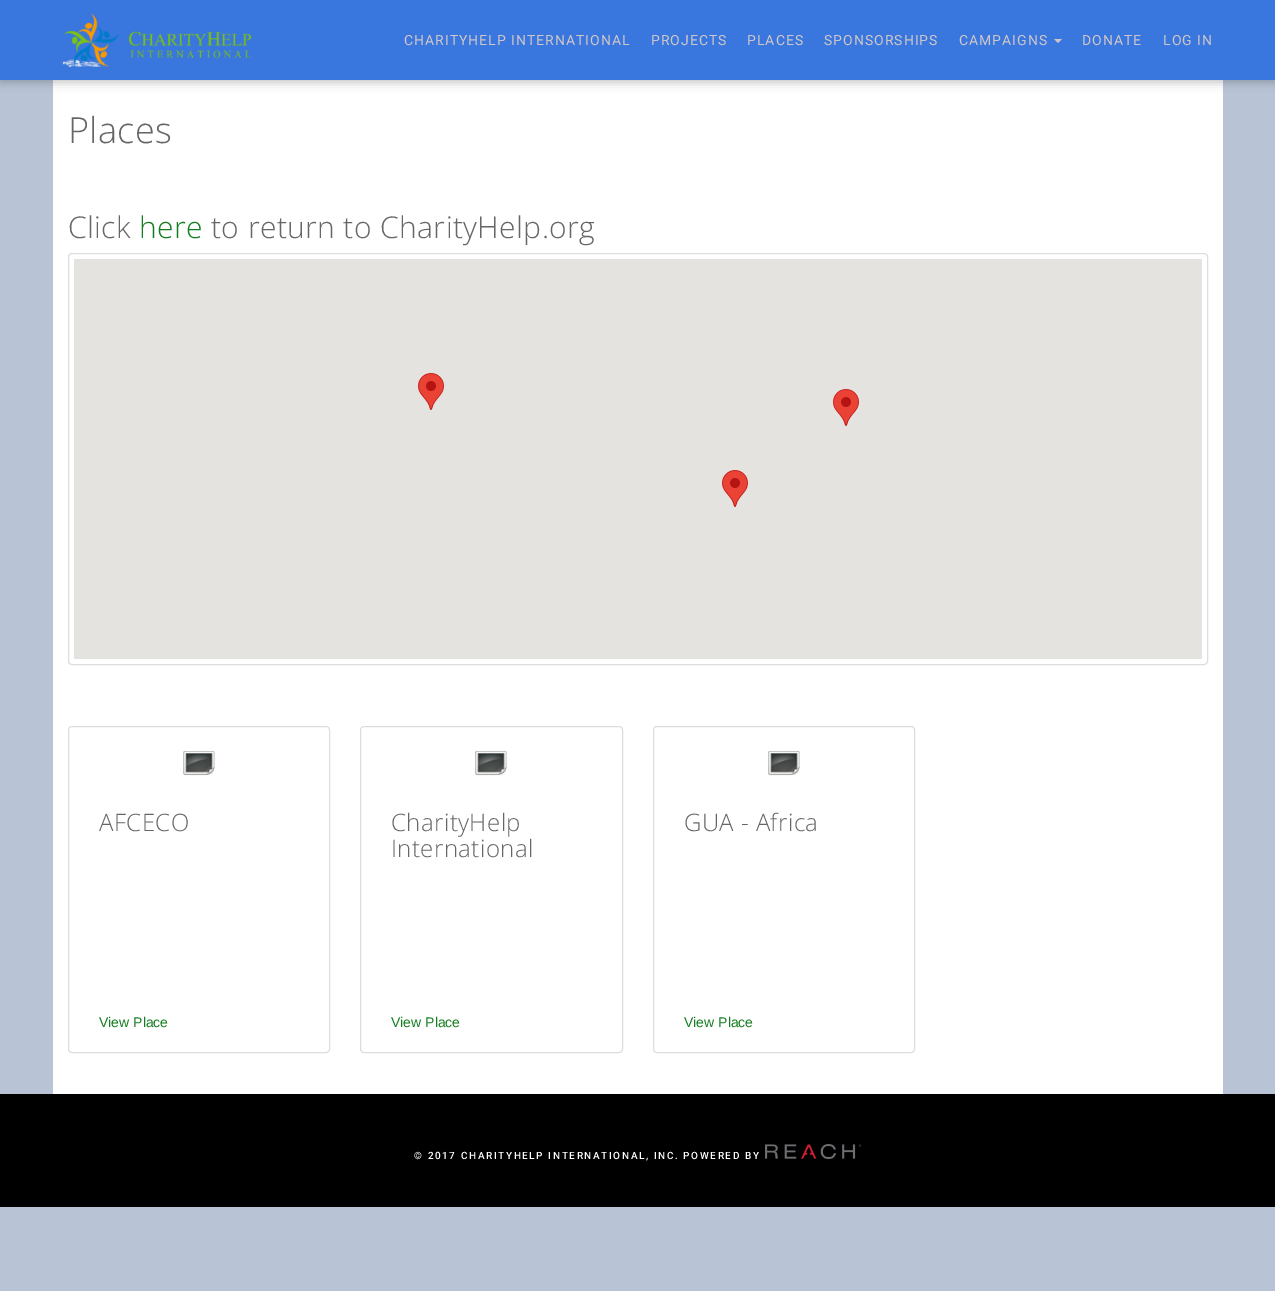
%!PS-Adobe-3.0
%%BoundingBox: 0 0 1275 1291
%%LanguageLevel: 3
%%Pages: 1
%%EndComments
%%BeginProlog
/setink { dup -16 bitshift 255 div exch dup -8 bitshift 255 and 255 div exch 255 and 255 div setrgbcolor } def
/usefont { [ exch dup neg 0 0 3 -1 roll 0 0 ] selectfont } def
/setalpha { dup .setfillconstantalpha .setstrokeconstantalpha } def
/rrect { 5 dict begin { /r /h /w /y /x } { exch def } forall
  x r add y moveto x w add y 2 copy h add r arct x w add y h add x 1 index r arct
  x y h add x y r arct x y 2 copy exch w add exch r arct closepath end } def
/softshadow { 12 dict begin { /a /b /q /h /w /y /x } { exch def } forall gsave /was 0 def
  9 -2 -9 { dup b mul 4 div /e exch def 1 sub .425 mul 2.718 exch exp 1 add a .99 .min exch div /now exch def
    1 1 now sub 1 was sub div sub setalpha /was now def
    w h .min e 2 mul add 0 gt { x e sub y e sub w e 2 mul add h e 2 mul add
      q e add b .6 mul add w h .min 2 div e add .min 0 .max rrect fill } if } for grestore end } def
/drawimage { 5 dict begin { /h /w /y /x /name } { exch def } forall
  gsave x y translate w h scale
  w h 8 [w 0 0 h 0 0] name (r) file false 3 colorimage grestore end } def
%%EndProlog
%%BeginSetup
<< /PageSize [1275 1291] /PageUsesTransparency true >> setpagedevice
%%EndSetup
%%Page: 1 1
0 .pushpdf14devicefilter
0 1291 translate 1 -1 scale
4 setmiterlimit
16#B8C4D6 setink
0 0 1275 1291 rectfill
16#FFFFFF setink
53 80 1170 1014 rectfill
16#000000 setink
0 2 1275 80 0 5 0.25 softshadow
16#3976DE setink
0 0 1275 80 rectfill
(img1.raw) 62 13 190 54 drawimage
/Roboto-Regular 14 usefont
16#CFC7C7 setink
404 45 moveto 1 0 (CHARITYHELP INTERNATIONAL) ashow
651 45 moveto 1 0 (PROJECTS) ashow
747 45 moveto 1 0 (PLACES) ashow
824 45 moveto 1 0 (SPONSORSHIPS) ashow
959 45 moveto 1 0 (CAMPAIGNS) ashow
1054 39 moveto 1062 39 lineto 1058 43 lineto closepath fill
1082 45 moveto 1 0 (DONATE) ashow
1163 45 moveto 1 0 (LOG IN) ashow
/OpenSans-Light 36 usefont
16#666666 setink
68 143 moveto 0.4 0 (Places) ashow
/OpenSans-Light 30 usefont
68 238 moveto 0.4 0 (Click) ashow
16#147D20 setink
139 238 moveto 0.4 0 (here) ashow
16#666666 setink
211 238 moveto 0.4 0 (to return to CharityHelp.org) ashow
16#DDDDDD setink
68.5 253.5 1139 411 3.5 rrect stroke
16#E5E3DF setink
74 259 1128 400 rectfill
(img2.raw) 418 373 26 37 drawimage
(img2.raw) 833 389 26 37 drawimage
(img2.raw) 722 470 26 37 drawimage
16#DDDDDD setink
68.5 726.5 261 326 3.5 rrect stroke
(img3.raw) 183 751 32 25 drawimage
/OpenSans-Light 24 usefont
16#666666 setink
99 831 moveto 0.4 0 (AFCECO) ashow
/LiberationSans-Regular 14 usefont
16#147D20 setink
99 1027 moveto (View Place) show
16#DDDDDD setink
360.5 726.5 262 326 3.5 rrect stroke
(img3.raw) 475 751 32 25 drawimage
/OpenSans-Light 24 usefont
16#666666 setink
391 831 moveto 0.4 0 (CharityHelp) ashow
391 857 moveto 0.4 0 (International) ashow
/LiberationSans-Regular 14 usefont
16#147D20 setink
391 1027 moveto (View Place) show
16#DDDDDD setink
653.5 726.5 261 326 3.5 rrect stroke
(img3.raw) 768 751 32 25 drawimage
/OpenSans-Light 24 usefont
16#666666 setink
684 831 moveto 0.4 0 (GUA - Africa) ashow
/LiberationSans-Regular 14 usefont
16#147D20 setink
684 1027 moveto (View Place) show
16#000000 setink
0 1094 1275 113 rectfill
/Roboto-Medium 10 usefont
16#FFFFFF setink
414 1159 moveto 1.6 0 (© 2017 CHARITYHELP INTERNATIONAL, INC. POWERED BY) ashow
(img4.raw) 765 1144 96 15 drawimage
.poppdf14devicefilter showpage
%%EOF
